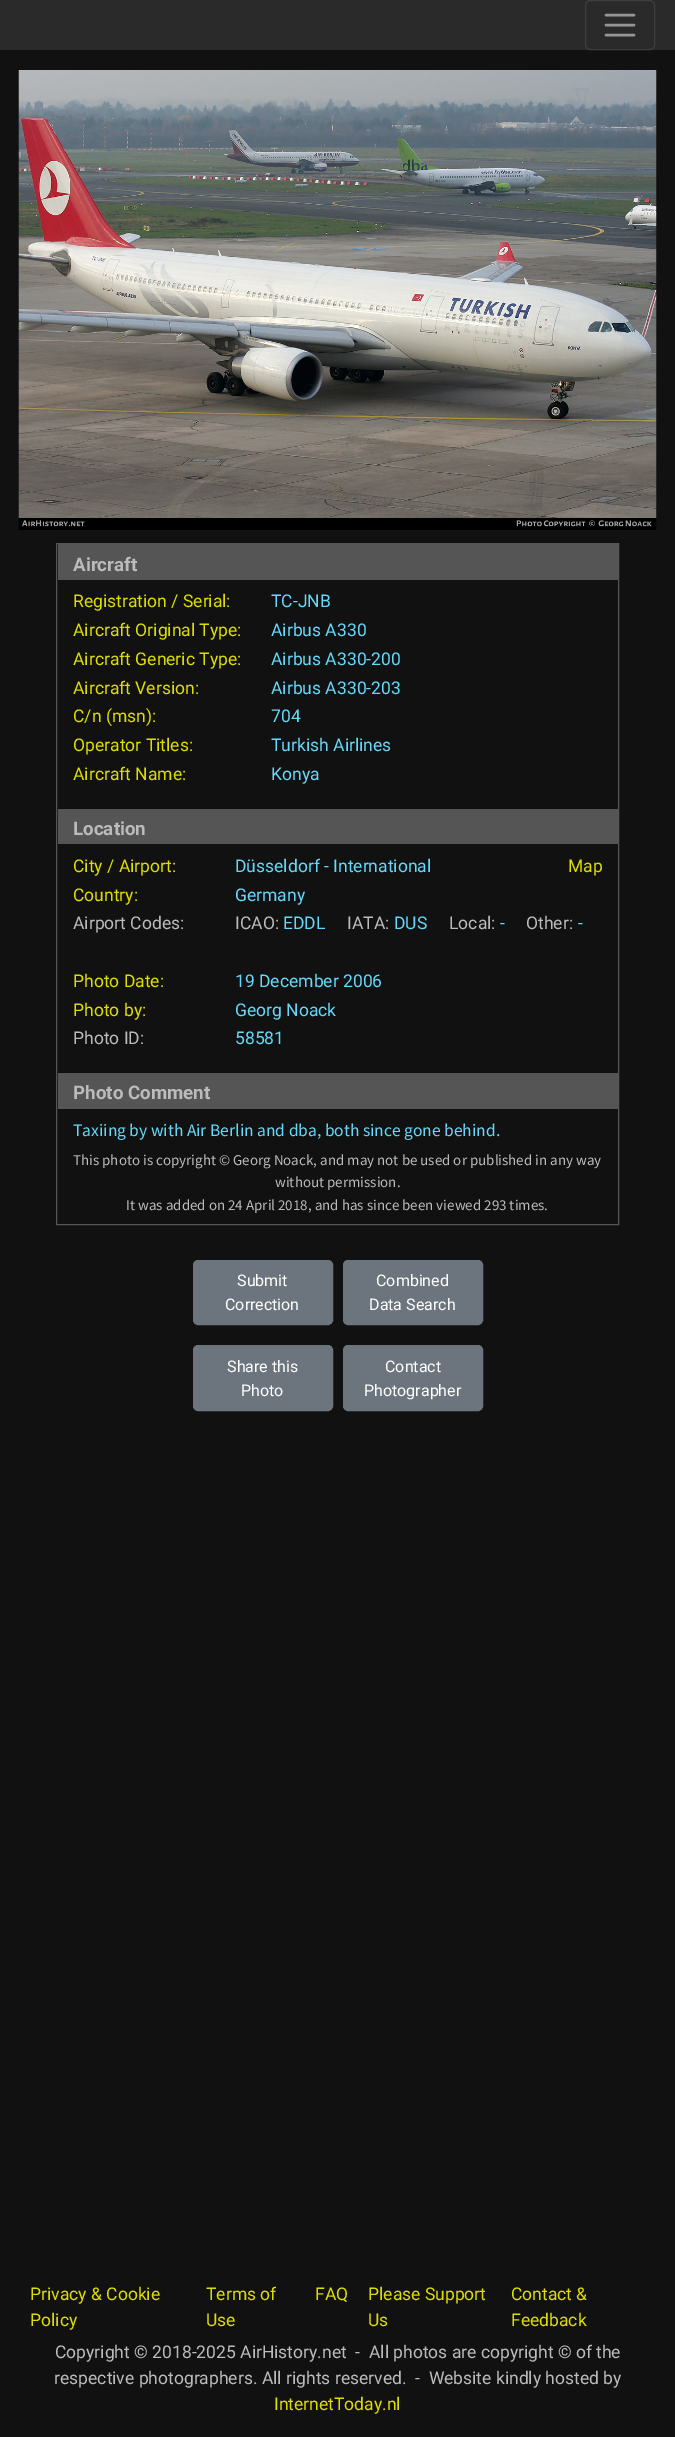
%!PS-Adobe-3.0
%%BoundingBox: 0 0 675 2437
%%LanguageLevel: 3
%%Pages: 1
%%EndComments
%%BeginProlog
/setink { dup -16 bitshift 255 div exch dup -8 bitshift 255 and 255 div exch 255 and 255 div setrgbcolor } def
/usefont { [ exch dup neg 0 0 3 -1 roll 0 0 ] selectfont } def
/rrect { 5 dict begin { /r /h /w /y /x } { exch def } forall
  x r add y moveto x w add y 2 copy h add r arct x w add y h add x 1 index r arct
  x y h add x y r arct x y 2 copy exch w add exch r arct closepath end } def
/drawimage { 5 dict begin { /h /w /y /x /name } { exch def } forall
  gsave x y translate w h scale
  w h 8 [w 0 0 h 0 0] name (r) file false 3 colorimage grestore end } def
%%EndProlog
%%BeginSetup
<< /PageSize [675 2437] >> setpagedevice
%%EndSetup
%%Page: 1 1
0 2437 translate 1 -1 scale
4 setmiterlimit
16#111111 setink
0 0 675 2437 rectfill
16#2A2A2A setink
0 0 675 50 rectfill
16#3F3F3F setink
585.5 0.5 69 49 4.5 rrect stroke
16#959595 setink
2.5 setlinewidth
1 setlinecap
606 15 moveto 634 15 lineto 606 25 moveto 634 25 lineto 606 35 moveto 634 35 lineto stroke
(img1.raw) 18 70 639 460 drawimage
16#555555 setink
1 setlinewidth
0 setlinecap
56.5 543.5 562 681 rectstroke
58 544 560 36 rectfill
/Roboto-Bold 18.75 usefont
16#BBBBBB setink
73 571 moveto (Aircraft) show
/Roboto-Regular 17.5 usefont
16#DDDD00 setink
73 607 moveto (Registration / Serial:) show
16#66D8FA setink
271 607 moveto (TC-JNB) show
16#DDDD00 setink
73 636 moveto (Aircraft Original Type:) show
16#66D8FA setink
271 636 moveto (Airbus A330) show
16#DDDD00 setink
73 665 moveto (Aircraft Generic Type:) show
16#66D8FA setink
271 665 moveto (Airbus A330-200) show
16#DDDD00 setink
73 694 moveto (Aircraft Version:) show
16#66D8FA setink
271 694 moveto (Airbus A330-203) show
16#DDDD00 setink
73 722 moveto (C/n \(msn\):) show
16#66D8FA setink
271 722 moveto (704) show
16#DDDD00 setink
73 751 moveto (Operator Titles:) show
16#66D8FA setink
271 751 moveto (Turkish Airlines) show
16#DDDD00 setink
73 780 moveto (Aircraft Name:) show
16#66D8FA setink
271 780 moveto (Konya) show
16#555555 setink
58 809 560 35 rectfill
/Roboto-Bold 18.75 usefont
16#BBBBBB setink
73 835 moveto (Location) show
/Roboto-Regular 17.5 usefont
16#DDDD00 setink
73 872 moveto (City / Airport:) show
16#66D8FA setink
235 872 moveto (Düsseldorf - International) show
16#DDDD00 setink
568 872 moveto (Map) show
73 901 moveto (Country:) show
16#66D8FA setink
235 901 moveto (Germany) show
16#BBBBBB setink
73 929 moveto (Airport Codes:) show
235 929 moveto (ICAO:) show
16#66D8FA setink
283 929 moveto (EDDL) show
16#BBBBBB setink
347 929 moveto (IATA:) show
16#66D8FA setink
394 929 moveto (DUS) show
16#BBBBBB setink
449 929 moveto (Local:) show
16#66D8FA setink
500 929 moveto (-) show
16#BBBBBB setink
526 929 moveto (Other:) show
16#66D8FA setink
578 929 moveto (-) show
16#DDDD00 setink
73 987 moveto (Photo Date:) show
16#66D8FA setink
235 987 moveto (19 December 2006) show
16#DDDD00 setink
73 1016 moveto (Photo by:) show
16#66D8FA setink
235 1016 moveto (Georg Noack) show
16#BBBBBB setink
73 1044 moveto (Photo ID:) show
16#66D8FA setink
235 1044 moveto (58581) show
16#555555 setink
58 1073 560 36 rectfill
/Roboto-Bold 18.75 usefont
16#BBBBBB setink
73 1099 moveto (Photo Comment) show
/SourceSansPro-Regular 17.5 usefont
16#66D8FA setink
73 1136 moveto (Taxiing by with Air Berlin and dba, both since gone behind.) show
/SourceSansPro-Regular 15 usefont
16#BBBBBB setink
[
    [(This photo is copyright © Georg Noack, and may not be used or published in any way) 73 1165]
    [(without permission.) 275 1187]
    [(It was added on 24 April 2018, and has since been viewed 293 times.) 126 1210]
] { aload pop moveto show } forall
16#6C757D setink
193.5 1260.5 139 64 4.5 rrect gsave fill grestore
stroke
/Roboto-Regular 16 usefont
16#FFFFFF setink
237 1286 moveto (Submit) show
225 1310 moveto (Correction) show
16#6C757D setink
343.5 1260.5 139 64 4.5 rrect gsave fill grestore
stroke
16#FFFFFF setink
376 1286 moveto (Combined) show
369 1310 moveto (Data Search) show
16#6C757D setink
193.5 1345.5 139 65 4.5 rrect gsave fill grestore
stroke
16#FFFFFF setink
227 1372 moveto (Share this) show
241 1396 moveto (Photo) show
16#6C757D setink
343.5 1345.5 139 65 4.5 rrect gsave fill grestore
stroke
16#FFFFFF setink
385 1372 moveto (Contact) show
364 1396 moveto (Photographer) show
/Roboto-Regular 17.5 usefont
16#DDDD00 setink
[
    [(Privacy & Cookie) 30 2300]
    [(Policy) 30 2326]
    [(Terms of) 206 2300]
    [(Use) 206 2326]
    [(FAQ) 315 2300]
    [(Please Support) 368 2300]
    [(Us) 368 2326]
    [(Contact &) 511 2300]
    [(Feedback) 511 2326]
] { aload pop moveto show } forall
16#BBBBBB setink
55 2358 moveto (Copyright © 2018-2025 AirHistory.net  -  All photos are copyright © of the) show
54 2384 moveto (respective photographers. All rights reserved.  -  Website kindly hosted by) show
16#DDDD00 setink
274 2410 moveto (InternetToday.nl) show
showpage
%%EOF
